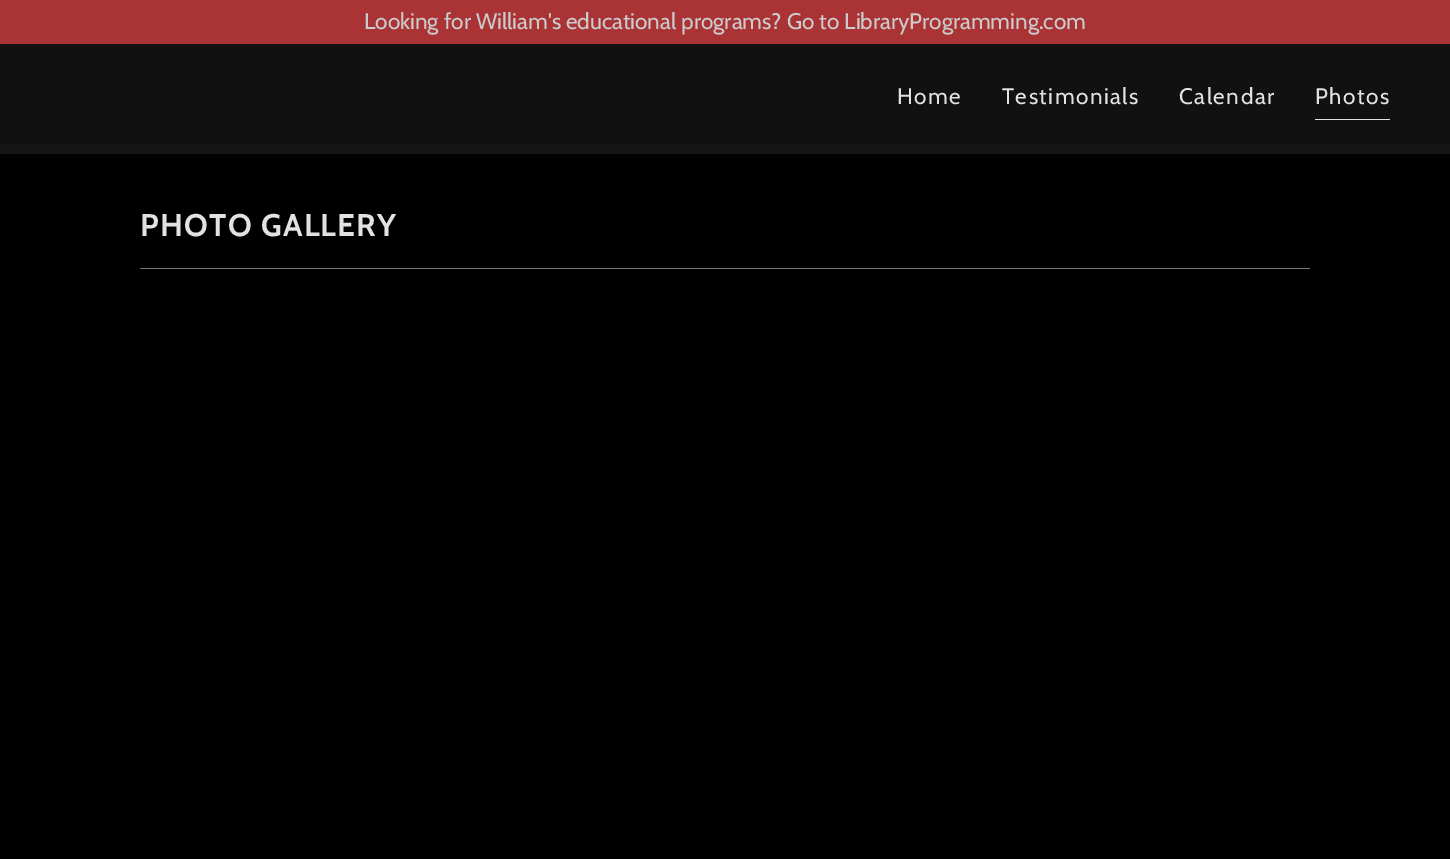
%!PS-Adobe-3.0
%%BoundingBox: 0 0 1450 859
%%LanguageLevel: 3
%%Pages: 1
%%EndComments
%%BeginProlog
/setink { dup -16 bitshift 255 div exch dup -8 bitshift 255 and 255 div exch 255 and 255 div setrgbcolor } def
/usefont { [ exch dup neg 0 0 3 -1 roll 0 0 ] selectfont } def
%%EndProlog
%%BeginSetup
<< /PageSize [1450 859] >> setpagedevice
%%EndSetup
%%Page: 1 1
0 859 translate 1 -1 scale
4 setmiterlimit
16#000000 setink
0 0 1450 859 rectfill
16#161616 setink
0 144 1450 10 rectfill
16#AA3335 setink
0 0 1450 44 rectfill
/Cabin-Regular 22.5 usefont
16#CCCCCC setink
364 29 moveto (Looking for William's educational programs? Go to LibraryProgramming.com) show
16#111111 setink
0 44 1450 100 rectfill
16#E2E2E2 setink
897 104 moveto 1.5 0 (Home) ashow
1002 104 moveto 1.5 0 (Testimonials) ashow
1179 104 moveto 1.5 0 (Calendar) ashow
1315 119 75 1 rectfill
1315 104 moveto 1.5 0 (Photos) ashow
/Cabin-Bold 31.25 usefont
140 236 moveto 1.25 0 (PHOTO GALLERY) ashow
16#777777 setink
140 268 1170 1 rectfill
showpage
%%EOF
